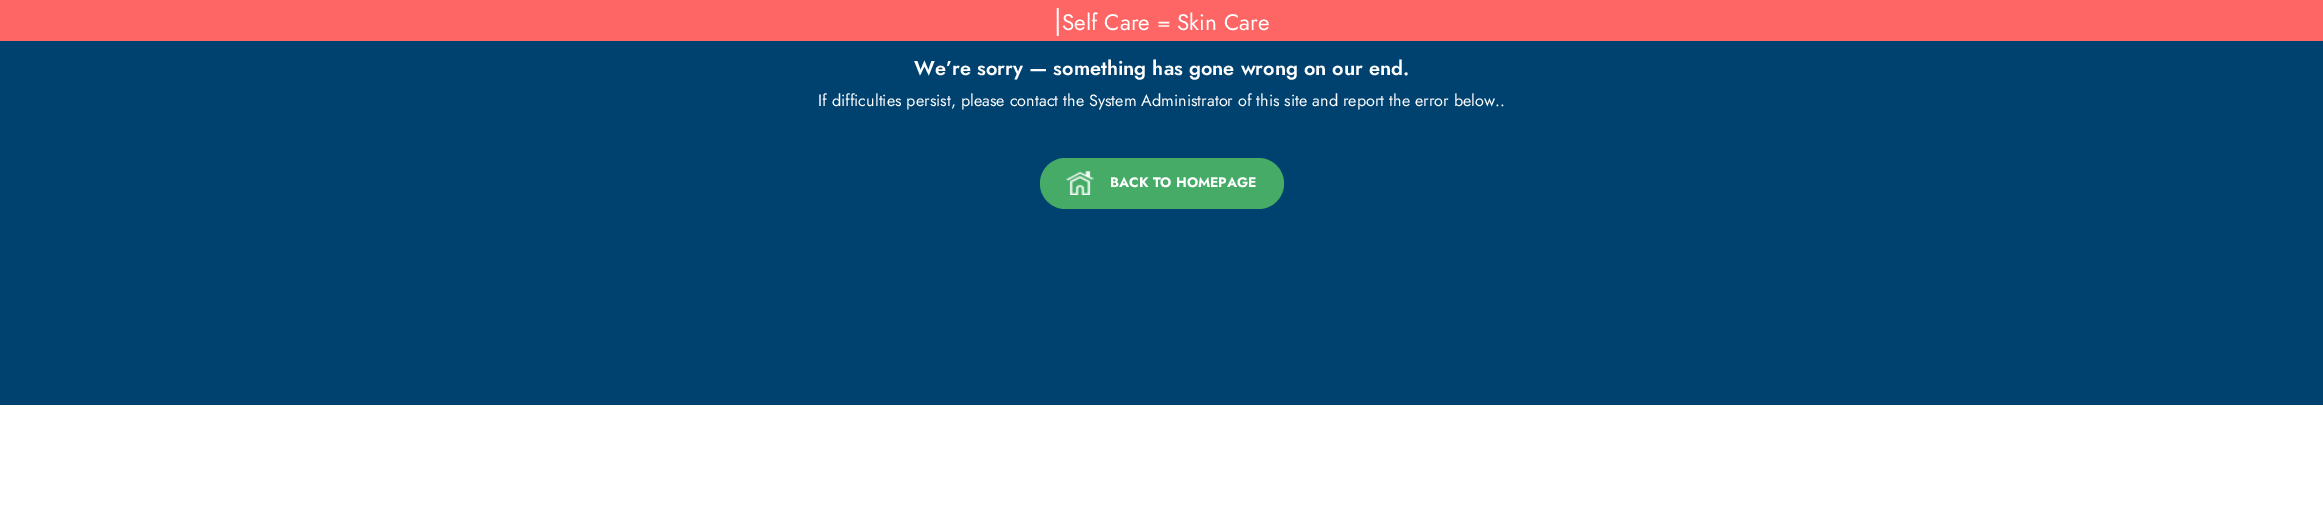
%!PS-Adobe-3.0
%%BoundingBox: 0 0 2323 513
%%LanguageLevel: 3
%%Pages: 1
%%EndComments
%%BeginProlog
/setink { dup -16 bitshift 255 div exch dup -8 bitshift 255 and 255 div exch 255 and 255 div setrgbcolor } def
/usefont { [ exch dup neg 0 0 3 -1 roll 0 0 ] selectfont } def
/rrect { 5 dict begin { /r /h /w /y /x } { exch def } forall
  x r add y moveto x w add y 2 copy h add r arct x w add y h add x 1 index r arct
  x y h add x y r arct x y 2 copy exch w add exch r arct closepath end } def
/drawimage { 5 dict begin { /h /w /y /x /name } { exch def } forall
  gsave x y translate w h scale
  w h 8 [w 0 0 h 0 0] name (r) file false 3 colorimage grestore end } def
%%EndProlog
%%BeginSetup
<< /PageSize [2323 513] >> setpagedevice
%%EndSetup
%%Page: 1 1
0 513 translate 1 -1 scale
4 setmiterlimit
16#FFFFFF setink
0 0 2323 513 rectfill
16#FE6666 setink
0 0 2323 41 rectfill
/Jost-Regular 28 usefont
16#FFFFFF setink
1054 30 moveto (|) show
/Jost-Regular 22.5 usefont
1062 30 moveto (Self Care = Skin Care) show
16#00426F setink
0 41 2323 364 rectfill
/Jost-SemiBold 20 usefont
16#FFFFFF setink
914 75 moveto (We’re sorry — something has gone wrong on our end.) show
/Jost-Regular 16.25 usefont
818 106 moveto (If difficulties persist, please contact the System Administrator of this site and report the error below..) show
16#45AB67 setink
1040 158 244 51 25.5 rrect fill
(img1.raw) 1066 171 28 24 drawimage
/Jost-Bold 13.75 usefont
16#FFFFFF setink
1110 187 moveto (BACK TO HOMEPAGE) show
showpage
%%EOF
